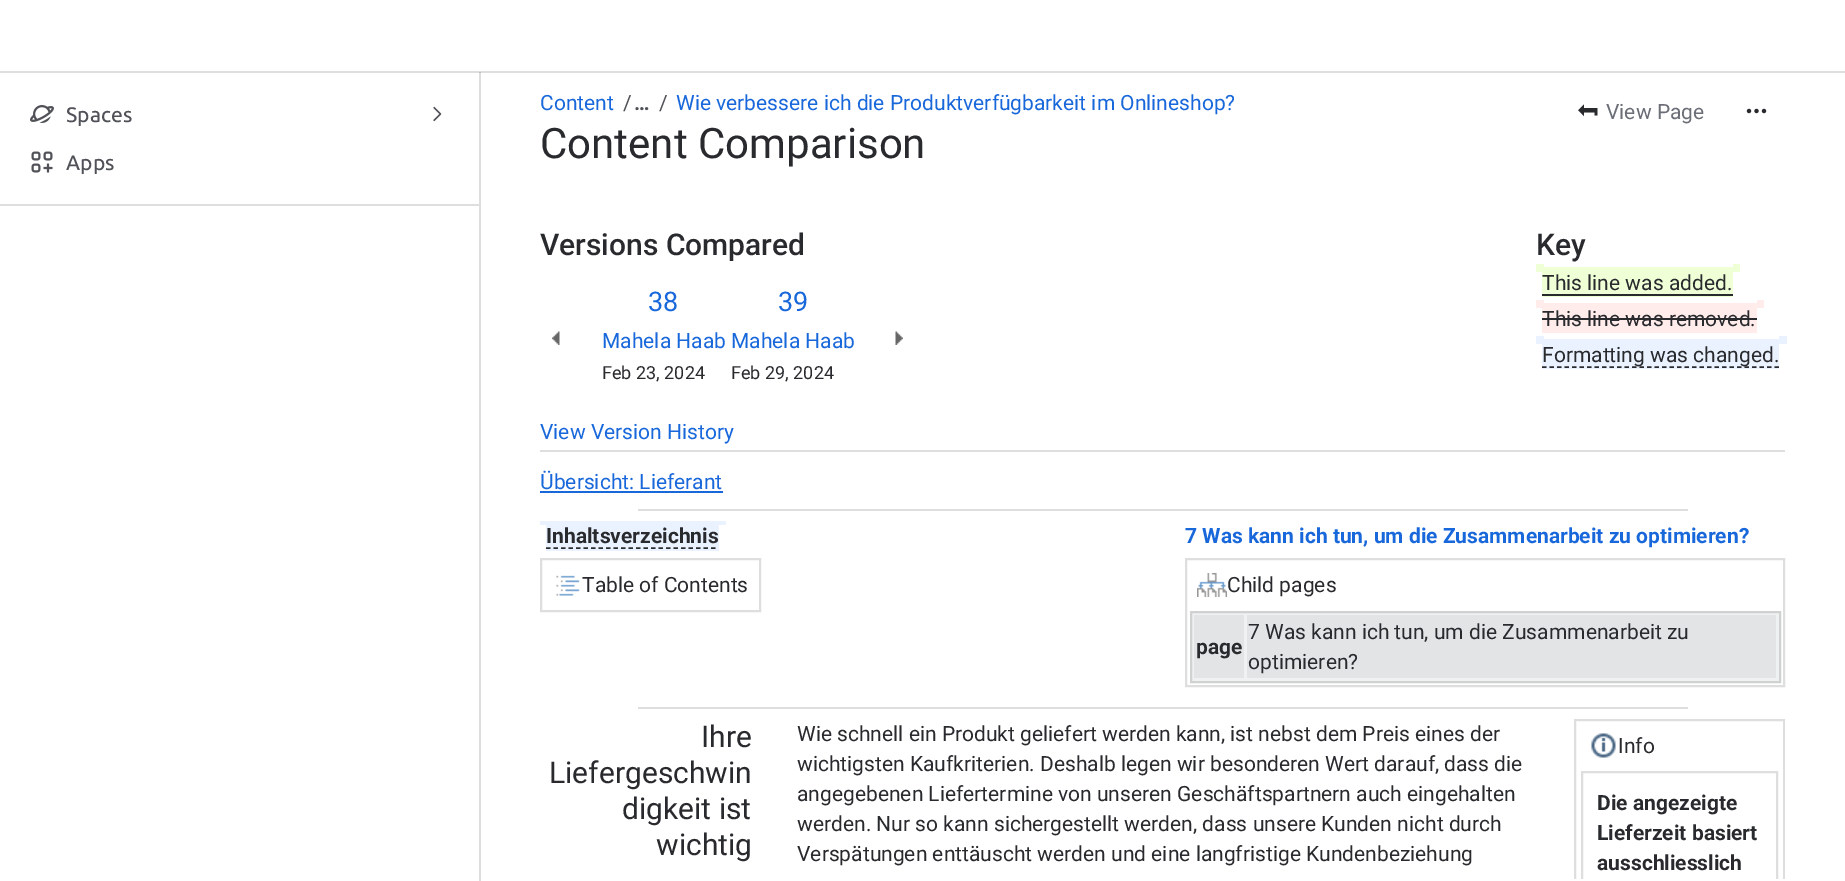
%!PS-Adobe-3.0
%%BoundingBox: 0 0 1845 881
%%LanguageLevel: 3
%%Pages: 1
%%EndComments
%%BeginProlog
/setink { dup -16 bitshift 255 div exch dup -8 bitshift 255 and 255 div exch 255 and 255 div setrgbcolor } def
/usefont { [ exch dup neg 0 0 3 -1 roll 0 0 ] selectfont } def
/drawimage { 5 dict begin { /h /w /y /x /name } { exch def } forall
  gsave x y translate w h scale
  w h 8 [w 0 0 h 0 0] name (r) file false 3 colorimage grestore end } def
%%EndProlog
%%BeginSetup
<< /PageSize [1845 881] >> setpagedevice
%%EndSetup
%%Page: 1 1
0 881 translate 1 -1 scale
4 setmiterlimit
16#FFFFFF setink
0 0 1845 881 rectfill
[
    [0 71 1845 2 16#DDDEDD]
    [479 72 2 809 16#DDDEDD]
    [479 72 2 1 16#C0C1C0]
] { aload pop setink rectfill } forall
(img1.raw) 30 105 24 18 drawimage
/Ubuntu-Medium 21 usefont
16#505258 setink
66 122 moveto (Spaces) show
(img2.raw) 433 106 9 16 drawimage
(img3.raw) 31 151 22 22 drawimage
66 170 moveto (Apps) show
16#DDDEDD setink
0 204 479 2 rectfill
/Roboto-Regular 21 usefont
16#1868DB setink
540 110 moveto (Content) show
16#505258 setink
623 110 moveto (/) show
/Roboto-Bold 21 usefont
634 110 moveto (…) show
/Roboto-Regular 21 usefont
659 110 moveto (/) show
16#1868DB setink
676 110 moveto (Wie verbessere ich die Produktverfügbarkeit im Onlineshop?) show
/Roboto-Regular 42 usefont
16#292A2E setink
540 158 moveto (Content Comparison) show
(img4.raw) 1578 104 20 13 drawimage
/Roboto-Regular 21 usefont
16#6B6E76 setink
1606 119 moveto (View Page) show
(img5.raw) 1746 108 21 6 drawimage
16#DDDEDD setink
540 450 1245 2 rectfill
/Roboto-Medium 30 usefont
16#292A2E setink
540 255 moveto (Versions Compared) show
1536 255 moveto (Key) show
16#EFFFD6 setink
1536 264 8 8 rectfill
1542 267 191 30 rectfill
/Roboto-Regular 21 usefont
16#292A2E setink
1542 290 moveto (This line was added.) show
[
    [1733 264 7 8 16#EFFFD6]
    [1542 294 191 2 16#292A2E]
    [1536 300 8 8 16#FFECEB]
    [1542 303 215 30 16#FFECEB]
] { aload pop setink rectfill } forall
16#292A2E setink
1542 326 moveto (This line was removed.) show
[
    [1757 300 7 8 16#FFECEB]
    [1542 318 215 2 16#292A2E]
    [1536 336 8 8 16#E9F2FE]
    [1542 339 237 30 16#E9F2FE]
] { aload pop setink rectfill } forall
16#292A2E setink
1.5 setlinewidth
[4.5 3] 0 setdash
1542 367 moveto 1779 367 lineto stroke
1542 362 moveto (Formatting was changed.) show
16#E9F2FE setink
1779 336 8 8 rectfill
/Roboto-Regular 27 usefont
16#1868DB setink
648 311 moveto (38) show
778 311 moveto (39) show
/Roboto-Regular 21 usefont
602 348 moveto (Mahela Haab) show
731 348 moveto (Mahela Haab) show
/Roboto-Regular 18 usefont
16#292A2E setink
602 379 moveto (Feb 23, 2024) show
731 379 moveto (Feb 29, 2024) show
(img6.raw) 552 331 8 14 drawimage
(img7.raw) 895 331 8 14 drawimage
/Roboto-Regular 21 usefont
16#1868DB setink
540 439 moveto (View Version History) show
540 489 moveto (Übersicht: Lieferant) show
[
    [540 491 183 2 16#1868DB]
    [638 509 1050 2 16#DDDEDD]
    [540 521 8 4 16#E9F2FE]
    [546 521 173 30 16#E9F2FE]
] { aload pop setink rectfill } forall
/Roboto-Bold 21 usefont
16#292A2E setink
546 543 moveto (Inhaltsverzeichnis) show
16#E9F2FE setink
719 521 7 4 rectfill
16#292A2E setink
546 548 moveto 718.5 548 lineto stroke
16#DDDEDD setink
2 setlinewidth
[] 0 setdash
541 559 219 52 rectstroke
(img8.raw) 556 575 24 21 drawimage
/Roboto-Regular 21 usefont
16#292A2E setink
582 592 moveto (Table of Contents) show
/Roboto-Bold 21 usefont
16#1868DB setink
1185 543 moveto (7 Was kann ich tun, um die Zusammenarbeit zu optimieren?) show
16#DDDEDD setink
1186 559 598 127 rectstroke
(img9.raw) 1197 573 30 24 drawimage
/Roboto-Regular 21 usefont
16#292A2E setink
1227 592 moveto (Child pages) show
16#F0F1F2 setink
1191 612 moveto 1780 612 lineto 1780 682 lineto 1191 682 lineto closepath gsave fill grestore
16#D0D2D2 setink
stroke
16#E2E4E6 setink
1194 615 50 63 rectfill
/Roboto-Bold 21 usefont
16#292A2E setink
1196 654 moveto (page) show
16#E2E4E6 setink
1247 615 529 63 rectfill
/Roboto-Regular 21 usefont
16#292A2E setink
1248 639 moveto (7 Was kann ich tun, um die Zusammenarbeit zu) show
1248 669 moveto (optimieren?) show
16#DDDEDD setink
638 707 1050 2 rectfill
/Roboto-Regular 30 usefont
16#292A2E setink
[
    [(Ihre) 701 747]
    [(Liefergeschwin) 549 783]
    [(digkeit ist) 622 819]
    [(wichtig) 656 855]
] { aload pop moveto show } forall
/Roboto-Regular 21 usefont
[
    [(Wie schnell ein Produkt geliefert werden kann, ist nebst dem Preis eines der) 797 741]
    [(wichtigsten Kaufkriterien. Deshalb legen wir besonderen Wert darauf, dass die) 797 771]
    [(angegebenen Liefertermine von unseren Geschäftspartnern auch eingehalten) 797 801]
    [(werden. Nur so kann sichergestellt werden, dass unsere Kunden nicht durch) 797 831]
    [(Verspätungen enttäuscht werden und eine langfristige Kundenbeziehung) 797 861]
] { aload pop moveto show } forall
gsave
1574 719 211 160 rectclip
16#DDDEDD setink
1575 720 209 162 rectstroke
grestore
(img10.raw) 1591 733 25 25 drawimage
1618 753 moveto (Info) show
gsave
1574 719 211 160 rectclip
16#DDDEDD setink
1582 772 195 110 rectstroke
grestore
/Roboto-Bold 21 usefont
[
    [(Die angezeigte) 1597 810]
    [(Lieferzeit basiert) 1597 840]
    [(ausschliesslich) 1597 870]
] { aload pop moveto show } forall
showpage
%%EOF
